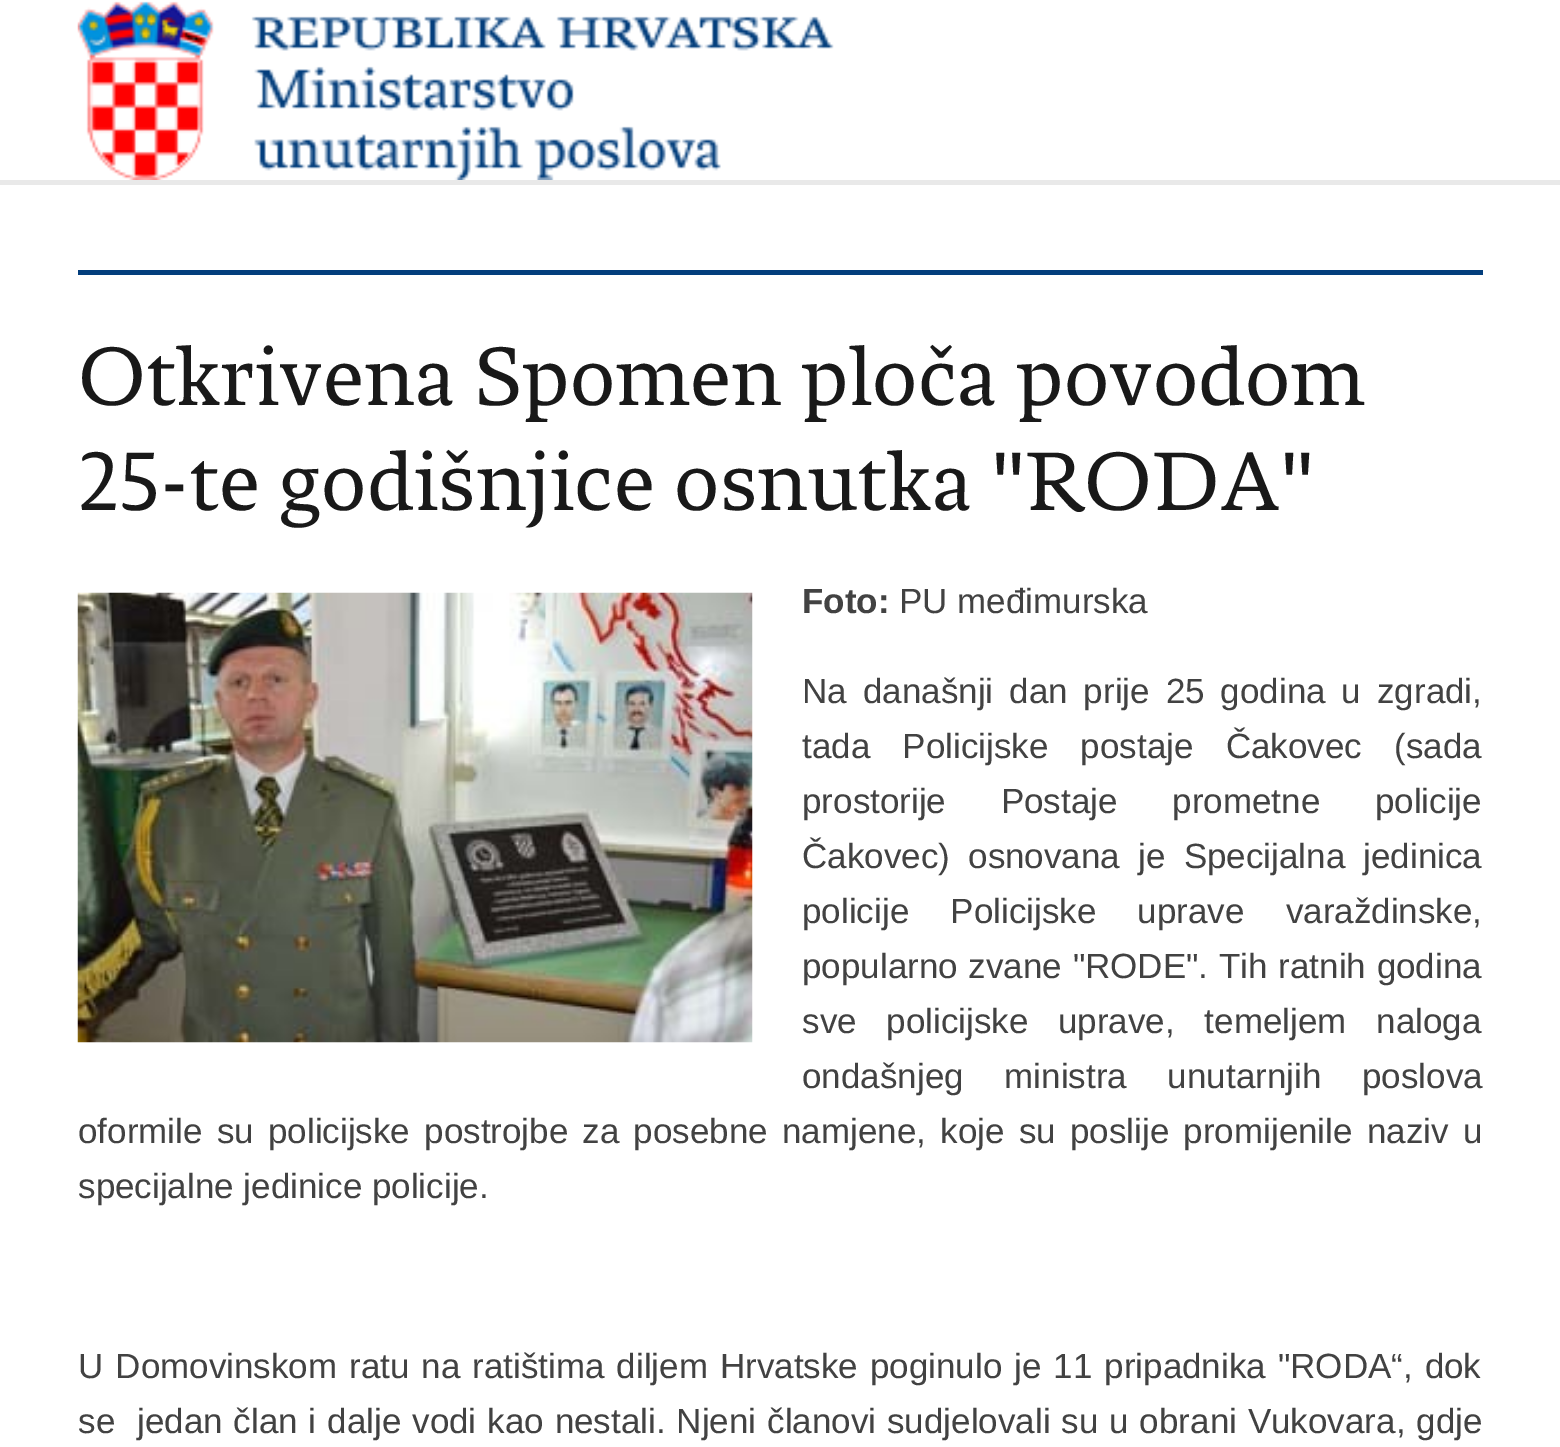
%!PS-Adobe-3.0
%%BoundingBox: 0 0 1560 1447
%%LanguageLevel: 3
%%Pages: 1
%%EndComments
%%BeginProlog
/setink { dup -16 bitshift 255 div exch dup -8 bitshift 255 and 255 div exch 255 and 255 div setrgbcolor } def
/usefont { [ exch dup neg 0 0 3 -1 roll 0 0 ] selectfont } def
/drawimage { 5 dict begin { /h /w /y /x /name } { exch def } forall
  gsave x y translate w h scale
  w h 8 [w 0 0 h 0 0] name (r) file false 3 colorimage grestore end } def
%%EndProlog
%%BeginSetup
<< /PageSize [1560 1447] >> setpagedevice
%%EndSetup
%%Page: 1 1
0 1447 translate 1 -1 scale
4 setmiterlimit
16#FFFFFF setink
0 0 1560 1447 rectfill
16#E9E9E9 setink
0 180 1560 5 rectfill
(img1.raw) 77 1 757 179 drawimage
16#033E7C setink
78 270 1405 5 rectfill
/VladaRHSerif-Regular 87.5 usefont
16#191919 setink
78 405 moveto (Otkrivena Spomen ploča povodom) show
78 510 moveto (25-te godišnjice osnutka "RODA") show
(img2.raw) 77 592 676 451 drawimage
/LiberationSans-Bold 35 usefont
16#424242 setink
802 613 moveto (Foto:) show
/LiberationSans-Regular 35 usefont
899 613 moveto (PU međimurska) show
802 703 moveto 6.25 0 32 (Na današnji dan prije 25 godina u zgradi,) widthshow
802 758 moveto 22.5 0 32 (tada Policijske postaje Čakovec \(sada) widthshow
802 813 moveto 45 0 32 (prostorije Postaje prometne policije) widthshow
802 868 moveto 8.5 0 32 (Čakovec\) osnovana je Specijalna jedinica) widthshow
802 923 moveto 31.5 0 32 (policije Policijske uprave varaždinske,) widthshow
802 978 moveto 1 0 32 (popularno zvane "RODE". Tih ratnih godina) widthshow
802 1033 moveto 20 0 32 (sve policijske uprave, temeljem naloga) widthshow
802 1088 moveto 31 0 32 (ondašnjeg ministra unutarnjih poslova) widthshow
78 1143 moveto 4.5 0 32 (oformile su policijske postrojbe za posebne namjene, koje su poslije promijenile naziv u) widthshow
78 1198 moveto (specijalne jedinice policije.) show
78 1378 moveto 2.25 0 32 (U Domovinskom ratu na ratištima diljem Hrvatske poginulo je 11 pripadnika "RODA“, dok) widthshow
78 1433 moveto 1.2 0 32 (se  jedan član i dalje vodi kao nestali. Njeni članovi sudjelovali su u obrani Vukovara, gdje) widthshow
showpage
%%EOF
